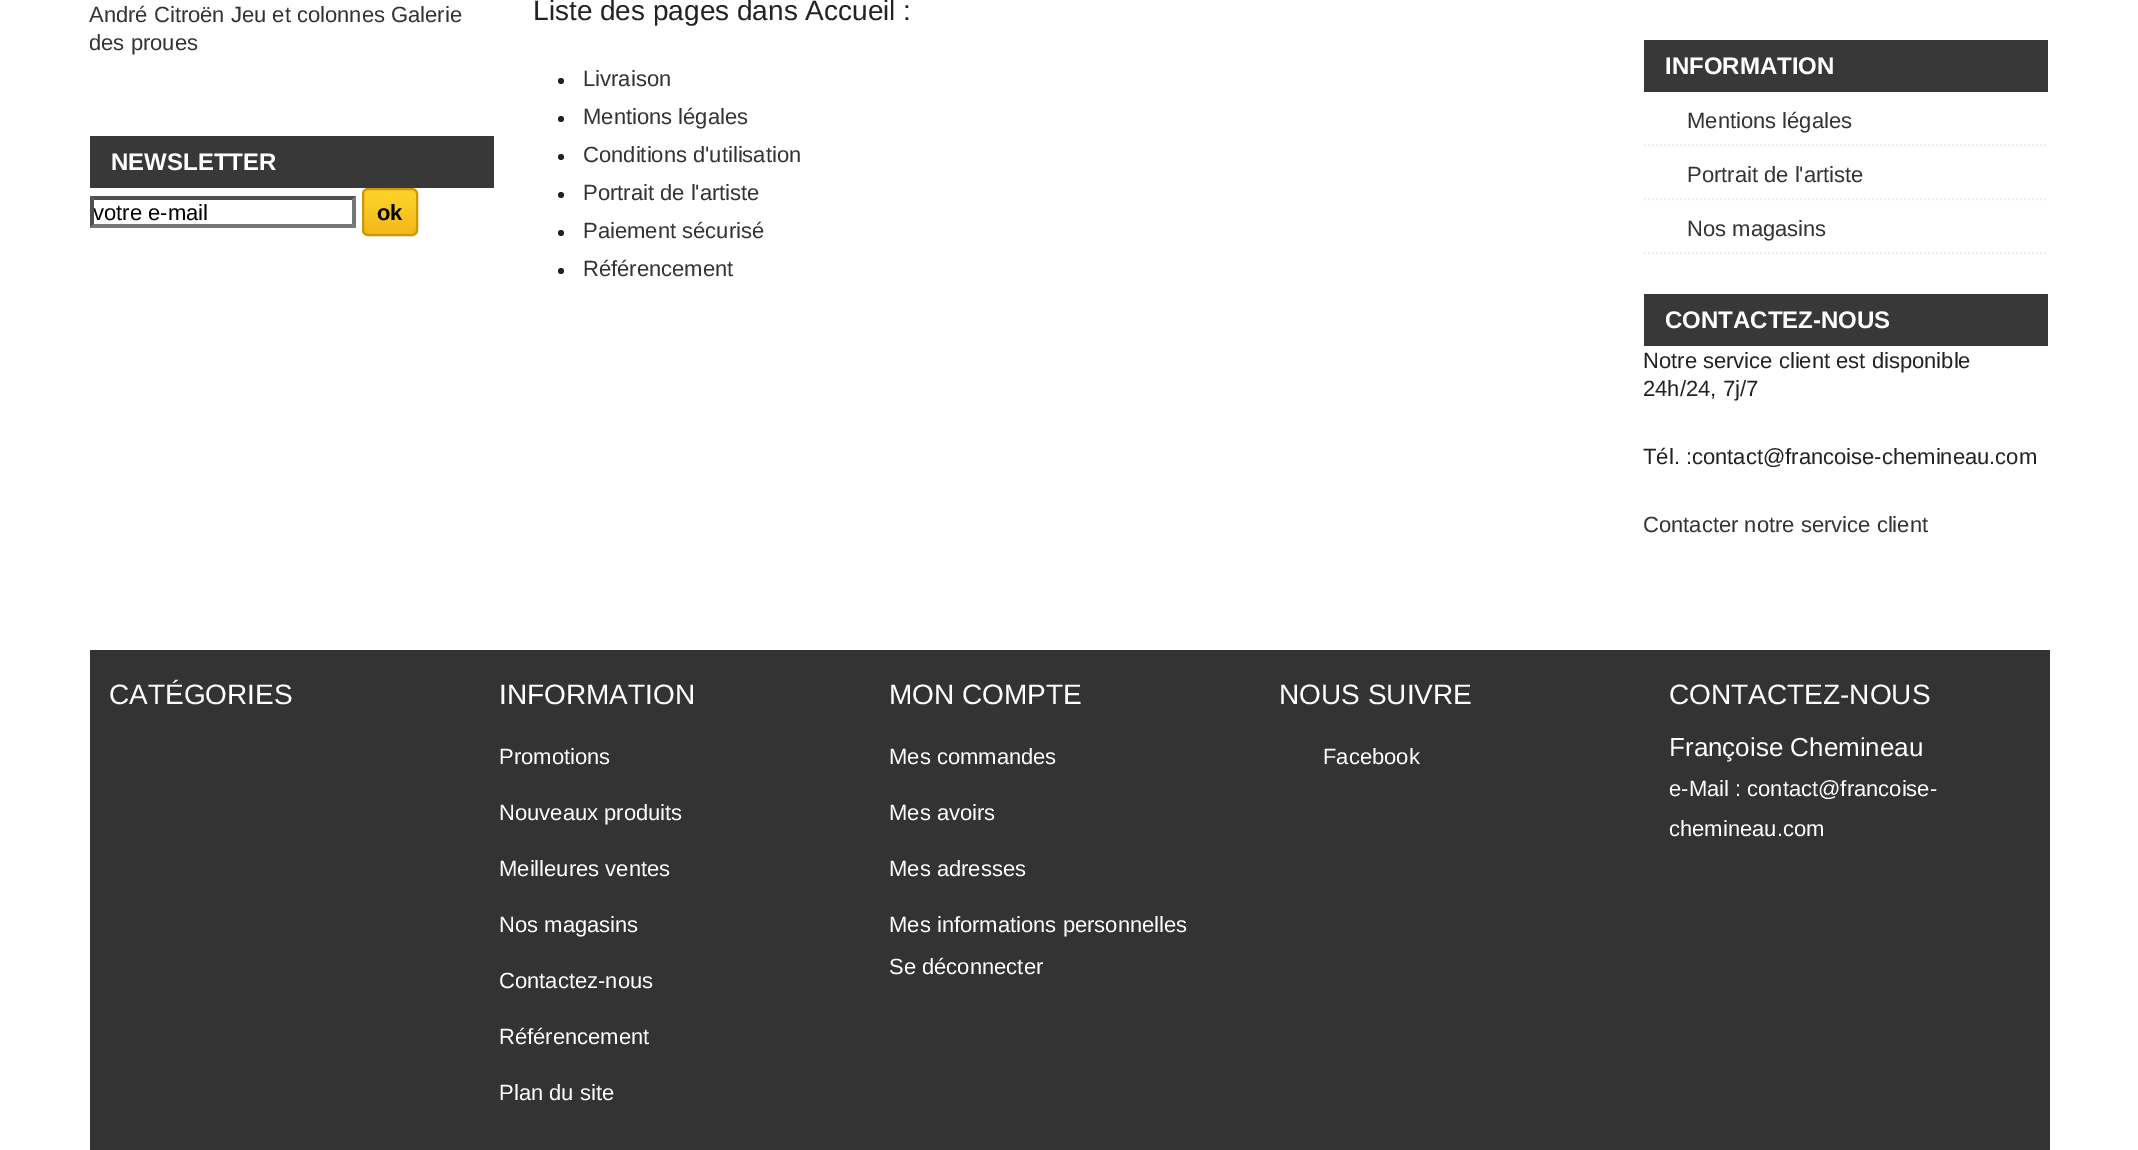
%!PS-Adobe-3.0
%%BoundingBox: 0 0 2138 1150
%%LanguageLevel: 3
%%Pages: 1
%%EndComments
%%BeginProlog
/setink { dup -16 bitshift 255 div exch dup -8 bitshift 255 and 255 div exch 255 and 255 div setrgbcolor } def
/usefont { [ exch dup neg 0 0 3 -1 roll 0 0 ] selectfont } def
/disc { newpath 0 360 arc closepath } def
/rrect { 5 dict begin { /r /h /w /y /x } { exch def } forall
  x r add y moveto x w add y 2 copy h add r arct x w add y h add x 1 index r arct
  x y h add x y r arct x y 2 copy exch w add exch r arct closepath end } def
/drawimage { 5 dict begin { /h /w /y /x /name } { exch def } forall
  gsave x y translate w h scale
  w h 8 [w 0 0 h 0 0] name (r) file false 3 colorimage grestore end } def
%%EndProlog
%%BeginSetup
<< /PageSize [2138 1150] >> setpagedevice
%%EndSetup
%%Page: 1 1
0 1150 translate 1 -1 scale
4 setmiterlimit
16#FFFFFF setink
0 0 2138 1150 rectfill
/LiberationSans-Regular 22 usefont
16#333333 setink
89 22 moveto (André Citroën Jeu et colonnes Galerie) show
89 50 moveto (des proues) show
16#383838 setink
90 136 404 52 rectfill
/LiberationSans-Bold 24 usefont
16#FFFFFF setink
111 170 moveto (NEWSLETTER) show
16#4F4F4F setink
90 196 moveto 356 196 lineto 352 200 lineto 94 200 lineto closepath fill
16#767676 setink
356 196 moveto 356 228 lineto 352 224 lineto 352 200 lineto closepath fill
356 228 moveto 90 228 lineto 94 224 lineto 352 224 lineto closepath fill
16#4F4F4F setink
90 228 moveto 90 196 lineto 94 200 lineto 94 224 lineto closepath fill
gsave
94 200 258 24 rectclip
/LiberationSans-Regular 22 usefont
16#000000 setink
93 220 moveto (votre e-mail) show
grestore
(img1.raw) 362 190 56 46 drawimage
16#CC9900 setink
2 setlinewidth
363 189 54 46 5 rrect stroke
/LiberationSans-Bold 22 usefont
16#000000 setink
377 220 moveto (ok) show
/LiberationSans-Regular 28 usefont
16#222222 setink
533 20 moveto (Liste des pages dans Accueil :) show
561 81 3 disc fill
/LiberationSans-Regular 22 usefont
16#333333 setink
583 86 moveto (Livraison) show
16#222222 setink
561 119 3 disc fill
16#333333 setink
583 124 moveto (Mentions légales) show
16#222222 setink
561 157 3 disc fill
16#333333 setink
583 162 moveto (Conditions d'utilisation) show
16#222222 setink
561 195 3 disc fill
16#333333 setink
583 200 moveto (Portrait de l'artiste) show
16#222222 setink
561 233 3 disc fill
16#333333 setink
583 238 moveto (Paiement sécurisé) show
16#222222 setink
561 271 3 disc fill
16#333333 setink
583 276 moveto (Référencement) show
16#383838 setink
1644 40 404 52 rectfill
/LiberationSans-Bold 24 usefont
16#FFFFFF setink
1665 74 moveto (INFORMATION) show
16#EEEEEE setink
[2 2] 0 setdash
1644 145 moveto 2048 145 lineto stroke
/LiberationSans-Regular 22 usefont
16#333333 setink
1687 128 moveto (Mentions légales) show
16#EEEEEE setink
1644 199 moveto 2048 199 lineto stroke
16#333333 setink
1687 182 moveto (Portrait de l'artiste) show
16#EEEEEE setink
1644 253 moveto 2048 253 lineto stroke
16#333333 setink
1687 236 moveto (Nos magasins) show
16#383838 setink
1644 294 404 52 rectfill
/LiberationSans-Bold 24 usefont
16#FFFFFF setink
1665 328 moveto (CONTACTEZ-NOUS) show
/LiberationSans-Regular 22 usefont
16#222222 setink
[
    [(Notre service client est disponible) 1643 368]
    [(24h/24, 7j/7) 1643 396]
    [(Tél. :contact@francoise-chemineau.com) 1643 464]
] { aload pop moveto show } forall
16#333333 setink
1643 532 moveto (Contacter notre service client) show
90 650 1960 500 rectfill
/LiberationSans-Regular 28 usefont
16#FFFFFF setink
109 704 moveto (CATÉGORIES) show
499 704 moveto (INFORMATION) show
/LiberationSans-Regular 22 usefont
[
    [(Promotions) 499 764]
    [(Nouveaux produits) 499 820]
    [(Meilleures ventes) 499 876]
    [(Nos magasins) 499 932]
    [(Contactez-nous) 499 988]
    [(Référencement) 499 1044]
    [(Plan du site) 499 1100]
] { aload pop moveto show } forall
/LiberationSans-Regular 28 usefont
889 704 moveto (MON COMPTE) show
/LiberationSans-Regular 22 usefont
[
    [(Mes commandes) 889 764]
    [(Mes avoirs) 889 820]
    [(Mes adresses) 889 876]
    [(Mes informations personnelles) 889 932]
    [(Se déconnecter) 889 974]
] { aload pop moveto show } forall
/LiberationSans-Regular 28 usefont
1279 704 moveto (NOUS SUIVRE) show
/LiberationSans-Regular 22 usefont
1323 764 moveto (Facebook) show
/LiberationSans-Regular 28 usefont
1669 704 moveto (CONTACTEZ-NOUS) show
/LiberationSans-Regular 26 usefont
1669 756 moveto (Françoise Chemineau) show
/LiberationSans-Regular 22 usefont
1669 796 moveto (e-Mail : contact@francoise-) show
1669 836 moveto (chemineau.com) show
showpage
%%EOF
